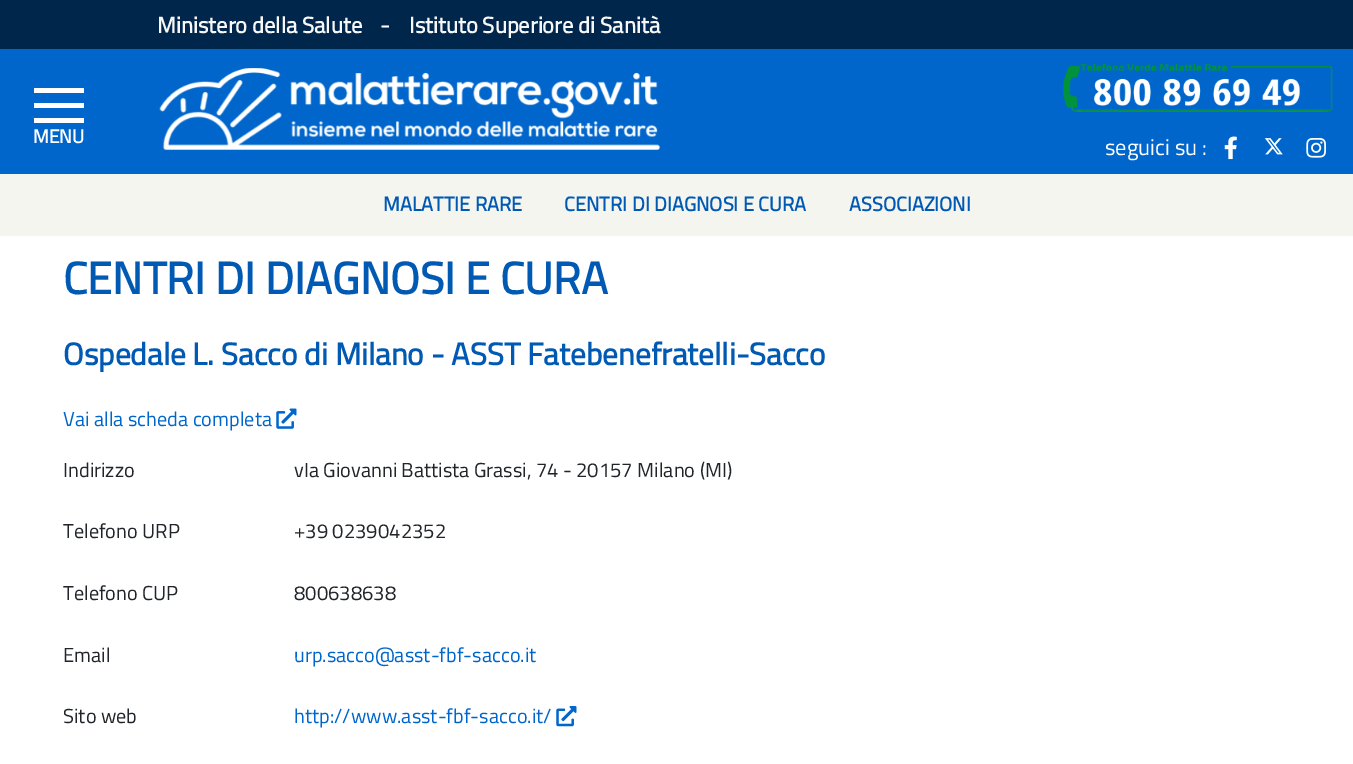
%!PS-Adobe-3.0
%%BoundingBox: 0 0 1353 764
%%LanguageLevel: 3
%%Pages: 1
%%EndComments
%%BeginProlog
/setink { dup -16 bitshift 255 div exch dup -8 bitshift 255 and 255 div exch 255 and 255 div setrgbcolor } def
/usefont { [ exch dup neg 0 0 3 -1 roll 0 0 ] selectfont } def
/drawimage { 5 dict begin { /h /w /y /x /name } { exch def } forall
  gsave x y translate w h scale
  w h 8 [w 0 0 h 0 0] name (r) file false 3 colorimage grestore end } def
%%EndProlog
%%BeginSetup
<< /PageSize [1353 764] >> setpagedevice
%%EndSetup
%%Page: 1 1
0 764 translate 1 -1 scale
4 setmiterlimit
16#FFFFFF setink
0 0 1353 764 rectfill
16#00264C setink
0 0 1353 49 rectfill
/TitilliumWeb-Bold 22.5 usefont
16#F7F7F7 setink
157 33 moveto (Ministero della Salute) show
16#FFFFFF setink
380 33 moveto (-) show
16#F7F7F7 setink
409 33 moveto (Istituto Superiore di Sanità) show
[
    [0 49 1353 125 16#0066CC]
    [34 88 50 5 16#FFFFFF]
    [34 103 50 5 16#FFFFFF]
    [34 118 50 5 16#FFFFFF]
] { aload pop setink rectfill } forall
/TitilliumWeb-Bold 19 usefont
33 143 moveto (MENU) show
(img1.raw) 159 68 501 82 drawimage
(img2.raw) 1063 63 270 49 drawimage
/TitilliumWeb-Regular 22.5 usefont
1105 155 moveto (seguici su :) show
(img3.raw) 1224 136 13 24 drawimage
(img4.raw) 1264 138 19 17 drawimage
(img5.raw) 1306 138 20 20 drawimage
16#F5F5F0 setink
0 174 1353 62 rectfill
/TitilliumWeb-Bold 20 usefont
16#0059B3 setink
[
    [(MALATTIE RARE) 383 211]
    [(CENTRI DI DIAGNOSI E CURA) 564 211]
    [(ASSOCIAZIONI) 849 211]
] { aload pop moveto show } forall
/TitilliumWeb-Bold 45 usefont
63 294 moveto (CENTRI DI DIAGNOSI E CURA) show
/TitilliumWeb-Bold 31.25 usefont
63 365 moveto (Ospedale L. Sacco di Milano - ASST Fatebenefratelli-Sacco) show
/TitilliumWeb-Regular 20.25 usefont
16#0066CC setink
63 426 moveto (Vai alla scheda completa) show
(img6.raw) 276 408 21 21 drawimage
16#212529 setink
[
    [(Indirizzo) 63 477]
    [(vIa Giovanni Battista Grassi, 74 - 20157 Milano \(MI\)) 294 477]
    [(Telefono URP) 63 538]
    [(+39 0239042352) 294 538]
    [(Telefono CUP) 63 600]
    [(800638638) 294 600]
    [(Email) 63 662]
] { aload pop moveto show } forall
16#0066CC setink
294 662 moveto (urp.sacco@asst-fbf-sacco.it) show
16#212529 setink
63 723 moveto (Sito web) show
16#0066CC setink
294 723 moveto (http://www.asst-fbf-sacco.it/) show
(img7.raw) 556 706 21 21 drawimage
showpage
%%EOF
